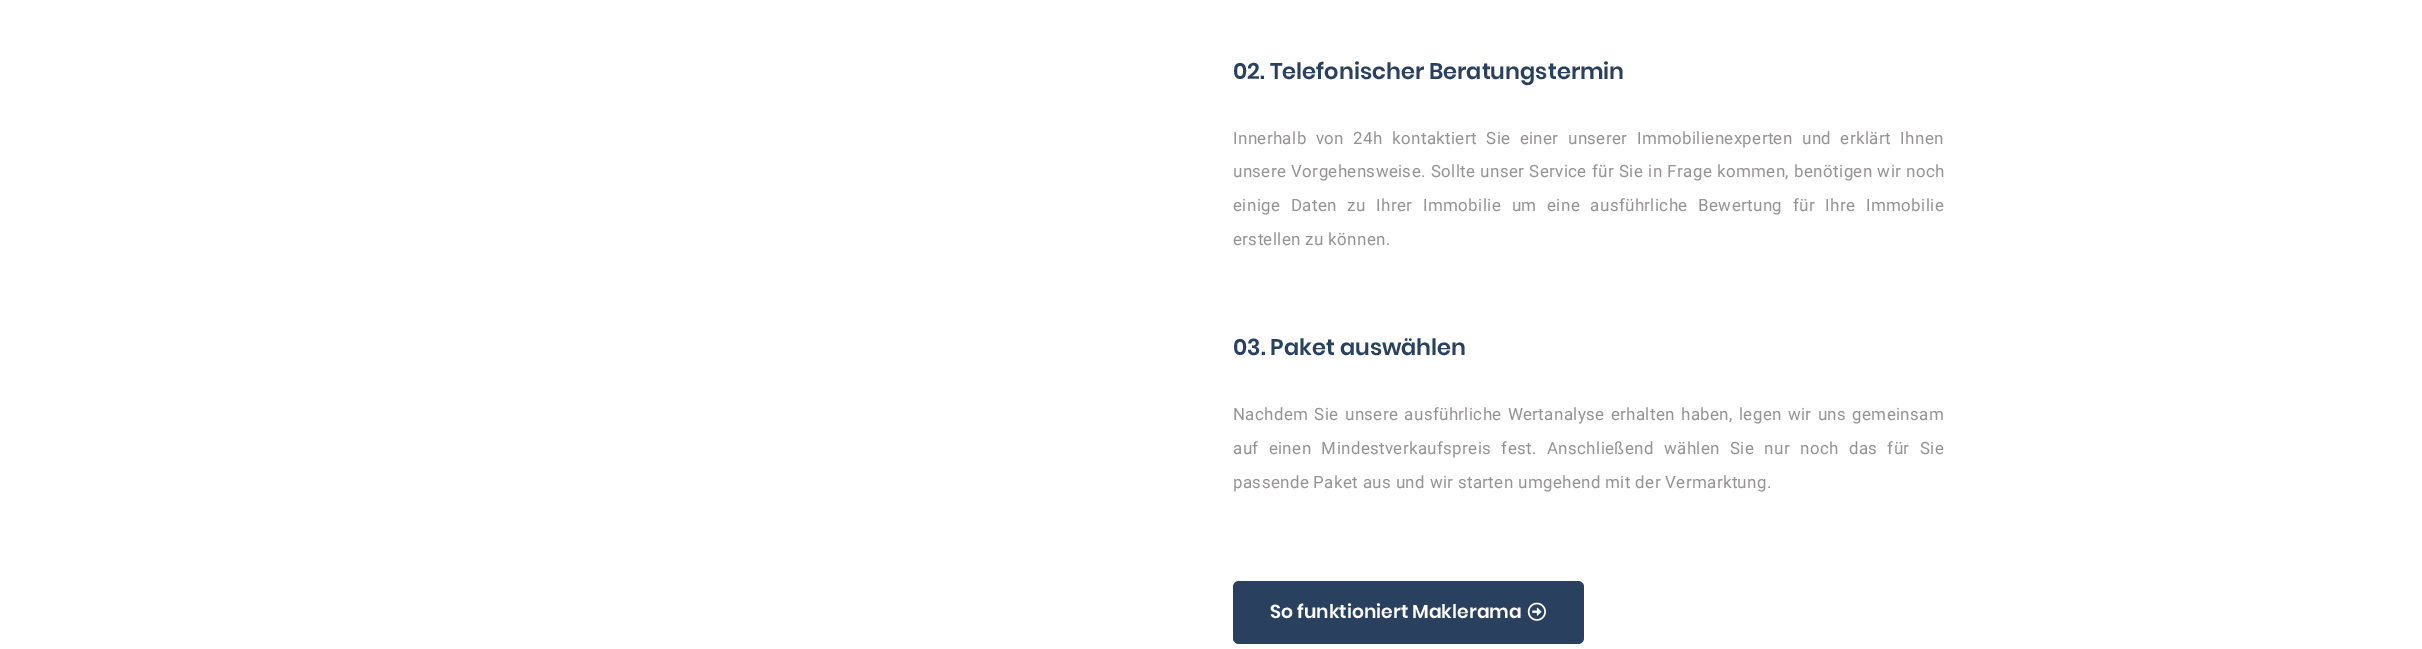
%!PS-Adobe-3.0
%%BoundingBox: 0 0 2422 649
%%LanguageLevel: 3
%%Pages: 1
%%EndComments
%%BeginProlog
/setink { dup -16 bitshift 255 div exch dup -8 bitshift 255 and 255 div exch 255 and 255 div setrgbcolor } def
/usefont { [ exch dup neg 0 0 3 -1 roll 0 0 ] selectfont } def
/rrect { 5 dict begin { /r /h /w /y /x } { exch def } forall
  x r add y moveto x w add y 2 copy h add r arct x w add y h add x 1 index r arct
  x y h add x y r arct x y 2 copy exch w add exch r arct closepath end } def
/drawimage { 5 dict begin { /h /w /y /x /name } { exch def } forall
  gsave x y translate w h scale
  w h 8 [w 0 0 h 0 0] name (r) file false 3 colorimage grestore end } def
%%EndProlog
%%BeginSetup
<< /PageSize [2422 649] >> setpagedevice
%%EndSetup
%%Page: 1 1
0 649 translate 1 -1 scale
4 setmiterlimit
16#FFFFFF setink
0 0 2422 649 rectfill
/Poppins-SemiBold 22.5 usefont
16#29415E setink
1233 79 moveto (02. Telefonischer Beratungstermin) show
/Roboto-Regular 16.9 usefont
16#949292 setink
1233 144 moveto 4.75 0 32 0.38 0 (Innerhalb von 24h kontaktiert Sie einer unserer Immobilienexperten und erklärt Ihnen) awidthshow
1233 177 moveto 0.5 0 32 0.38 0 (unsere Vorgehensweise. Sollte unser Service für Sie in Frage kommen, benötigen wir noch) awidthshow
1233 211 moveto 6 0 32 0.38 0 (einige Daten zu Ihrer Immobilie um eine ausführliche Bewertung für Ihre Immobilie) awidthshow
1233 245 moveto 0.38 0 (erstellen zu können.) ashow
/Poppins-SemiBold 22.5 usefont
16#29415E setink
1233 355 moveto (03. Paket auswählen) show
/Roboto-Regular 16.9 usefont
16#949292 setink
1233 420 moveto 1.6 0 32 0.38 0 (Nachdem Sie unsere ausführliche Wertanalyse erhalten haben, legen wir uns gemeinsam) awidthshow
1233 454 moveto 5.6 0 32 0.38 0 (auf einen Mindestverkaufspreis fest. Anschließend wählen Sie nur noch das für Sie) awidthshow
1233 488 moveto 0.38 0 (passende Paket aus und wir starten umgehend mit der Vermarktung.) ashow
16#29415E setink
1233 581 351 63 6 rrect fill
/Poppins-SemiBold 18.75 usefont
16#FFFFFF setink
1270 618 moveto (So funktioniert Maklerama) show
(img1.raw) 1527 602 19 19 drawimage
showpage
%%EOF
